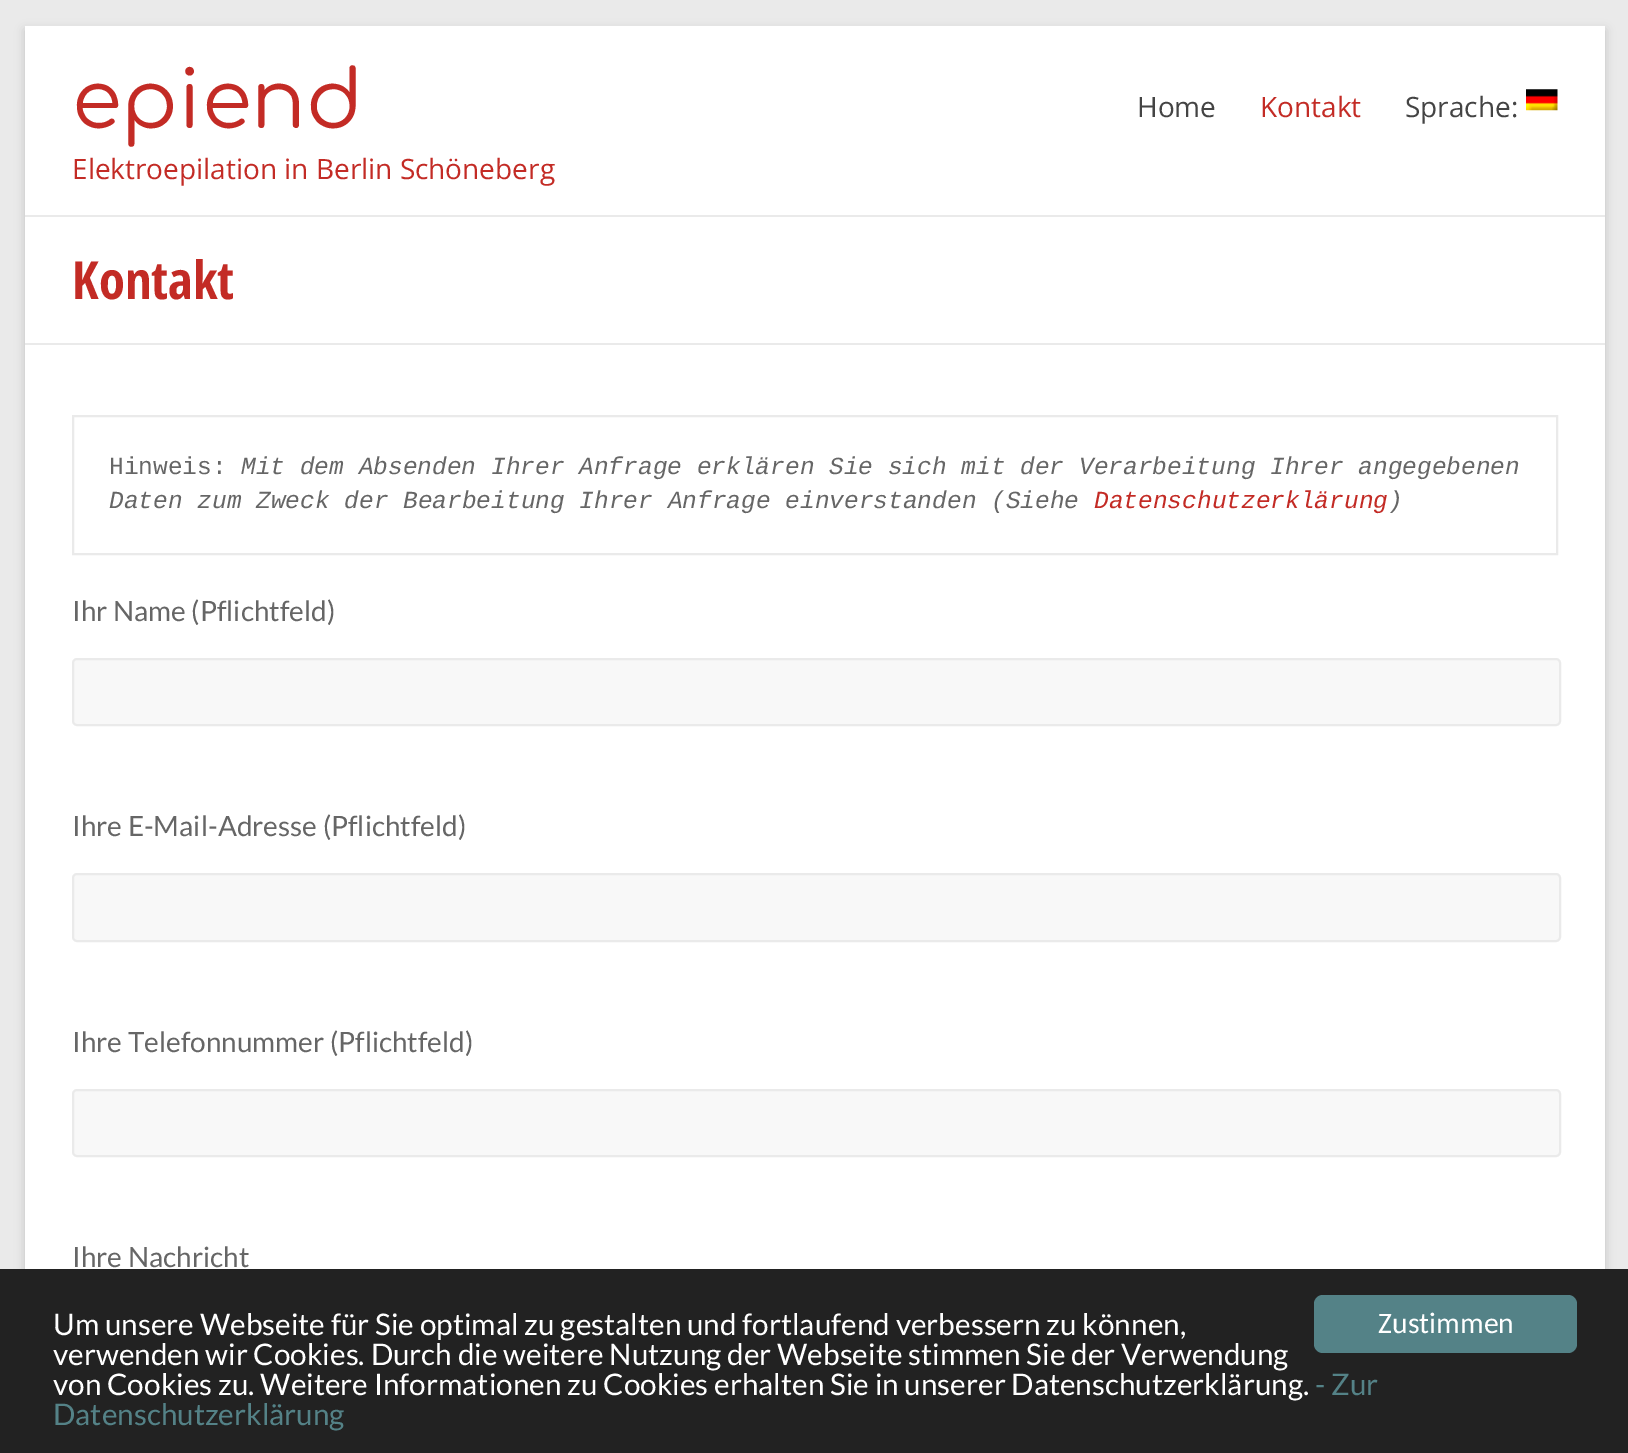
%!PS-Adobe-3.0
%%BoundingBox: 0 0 1628 1453
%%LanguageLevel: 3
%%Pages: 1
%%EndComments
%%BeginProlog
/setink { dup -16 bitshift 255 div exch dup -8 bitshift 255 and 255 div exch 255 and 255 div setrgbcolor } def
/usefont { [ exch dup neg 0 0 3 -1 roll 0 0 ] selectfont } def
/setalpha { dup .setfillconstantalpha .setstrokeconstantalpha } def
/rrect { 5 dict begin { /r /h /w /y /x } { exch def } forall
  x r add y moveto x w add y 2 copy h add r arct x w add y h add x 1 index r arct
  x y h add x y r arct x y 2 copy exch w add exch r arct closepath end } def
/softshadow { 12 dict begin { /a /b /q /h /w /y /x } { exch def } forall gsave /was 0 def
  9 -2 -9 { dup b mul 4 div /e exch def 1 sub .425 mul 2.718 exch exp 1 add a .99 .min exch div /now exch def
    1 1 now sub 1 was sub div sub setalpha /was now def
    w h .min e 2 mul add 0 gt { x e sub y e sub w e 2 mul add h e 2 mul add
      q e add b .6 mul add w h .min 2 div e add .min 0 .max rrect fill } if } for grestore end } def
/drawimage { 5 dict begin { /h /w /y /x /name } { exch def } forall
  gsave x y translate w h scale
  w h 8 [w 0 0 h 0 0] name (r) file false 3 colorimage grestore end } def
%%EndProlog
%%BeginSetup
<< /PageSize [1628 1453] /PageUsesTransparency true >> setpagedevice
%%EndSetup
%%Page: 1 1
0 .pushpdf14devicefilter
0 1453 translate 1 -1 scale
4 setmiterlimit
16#EAEAEA setink
0 0 1628 1453 rectfill
16#646464 setink
25 30 1580 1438 0 5 0.3 softshadow
16#FFFFFF setink
25 26 1580 1243 rectfill
16#EAEAEA setink
25 215 1580 2 rectfill
/Comfortaa-Regular 80.5 usefont
16#C32B25 setink
72 128 moveto (epiend) show
/OpenSans-Regular 28 usefont
72 179 moveto (Elektroepilation in Berlin Schöneberg) show
16#444444 setink
1137 117 moveto (Home) show
16#C32B25 setink
1260 117 moveto (Kontakt) show
16#444444 setink
1405 117 moveto (Sprache:) show
(img1.raw) 1526 89 32 22 drawimage
16#EAEAEA setink
25 343 1580 2 rectfill
/OpenSansCondensed-Bold 52.5 usefont
16#C32B25 setink
72 299 moveto (Kontakt) show
16#EAEAEA setink
2 setlinewidth
73 416 1484 138 rectstroke
/LiberationMono-Regular 24.5 usefont
16#666666 setink
109 474 moveto (Hinweis:) show
/LiberationMono-Italic 24.5 usefont
241 474 moveto (Mit dem Absenden Ihrer Anfrage erklären Sie sich mit der Verarbeitung Ihrer angegebenen) show
109 508 moveto (Daten zum Zweck der Bearbeitung Ihrer Anfrage einverstanden \(Siehe) show
16#C32B25 setink
1094 508 moveto (Datenschutzerklärung) show
16#666666 setink
1388 508 moveto (\)) show
/Lato-Regular 28 usefont
72 621 moveto (Ihr Name \(Pflichtfeld\)) show
16#F8F8F8 setink
73 659 1487 66 4 rrect gsave fill grestore
16#EAEAEA setink
stroke
16#666666 setink
72 836 moveto (Ihre E-Mail-Adresse \(Pflichtfeld\)) show
16#F8F8F8 setink
73 874 1487 67 4 rrect gsave fill grestore
16#EAEAEA setink
stroke
16#666666 setink
72 1052 moveto (Ihre Telefonnummer \(Pflichtfeld\)) show
16#F8F8F8 setink
73 1090 1487 66 4 rrect gsave fill grestore
16#EAEAEA setink
stroke
16#666666 setink
72 1267 moveto (Ihre Nachricht) show
16#222222 setink
0 1269 1628 184 rectfill
/Lato-Regular 29.75 usefont
16#FFFFFF setink
[
    [(Um unsere Webseite für Sie optimal zu gestalten und fortlaufend verbessern zu können,) 53 1335]
    [(verwenden wir Cookies. Durch die weitere Nutzung der Webseite stimmen Sie der Verwendung) 53 1365]
    [(von Cookies zu. Weitere Informationen zu Cookies erhalten Sie in unserer Datenschutzerklärung.) 53 1395]
] { aload pop moveto show } forall
16#548287 setink
1315 1395 moveto (- Zur) show
53 1425 moveto (Datenschutzerklärung) show
1314 1295 263 58 9 rrect fill
/Carlito-Regular 29.75 usefont
16#FFFFFF setink
1378 1333 moveto (Zustimmen) show
.poppdf14devicefilter showpage
%%EOF
